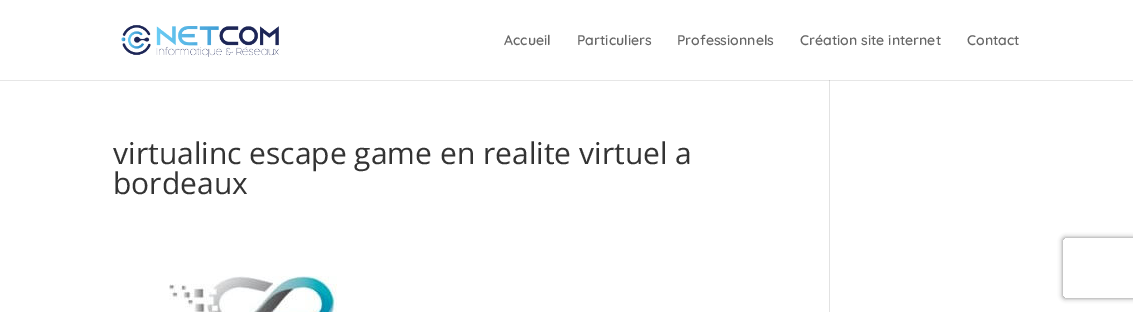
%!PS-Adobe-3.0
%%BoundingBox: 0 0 1133 312
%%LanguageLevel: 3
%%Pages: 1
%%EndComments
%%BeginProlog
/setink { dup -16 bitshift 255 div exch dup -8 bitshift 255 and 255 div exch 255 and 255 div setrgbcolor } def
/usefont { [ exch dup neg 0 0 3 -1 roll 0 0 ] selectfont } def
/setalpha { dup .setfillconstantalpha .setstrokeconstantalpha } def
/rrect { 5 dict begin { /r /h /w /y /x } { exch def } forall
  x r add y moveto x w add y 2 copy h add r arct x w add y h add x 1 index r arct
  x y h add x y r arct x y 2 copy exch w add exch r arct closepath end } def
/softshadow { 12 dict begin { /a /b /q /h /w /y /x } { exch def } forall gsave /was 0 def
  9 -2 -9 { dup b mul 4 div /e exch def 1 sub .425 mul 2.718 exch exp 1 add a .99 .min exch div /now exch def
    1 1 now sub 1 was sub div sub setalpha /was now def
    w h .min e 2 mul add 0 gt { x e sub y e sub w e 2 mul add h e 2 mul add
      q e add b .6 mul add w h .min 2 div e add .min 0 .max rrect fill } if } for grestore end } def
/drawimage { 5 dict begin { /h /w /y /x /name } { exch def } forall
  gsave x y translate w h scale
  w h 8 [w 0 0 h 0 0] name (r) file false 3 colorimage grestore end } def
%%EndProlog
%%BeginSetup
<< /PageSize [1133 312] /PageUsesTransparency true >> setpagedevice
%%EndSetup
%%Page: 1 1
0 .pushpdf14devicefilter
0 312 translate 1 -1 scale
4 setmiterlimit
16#FFFFFF setink
0 0 1133 312 rectfill
16#E6E6E6 setink
0 80 1133 1 rectfill
(img1.raw) 121 25 158 32 drawimage
/Quicksand-SemiBold 14 usefont
16#666666 setink
[
    [(Accueil) 504 45]
    [(Particuliers) 577 45]
    [(Professionnels) 677 45]
    [(Création site internet) 800 45]
    [(Contact) 967 45]
] { aload pop moveto show } forall
/OpenSans-Regular 30 usefont
16#333333 setink
113 164 moveto (virtualinc escape game en realite virtuel a) show
113 194 moveto (bordeaux) show
(img2.raw) 169 276 168 36 drawimage
16#E2E2E2 setink
829 80 1 232 rectfill
16#CBCBCB setink
829 80 1 1 rectfill
gsave
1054 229 moveto 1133 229 lineto 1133 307 lineto 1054 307 lineto closepath 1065 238 moveto 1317 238 lineto 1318 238 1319 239 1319 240 curveto 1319 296 lineto 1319 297 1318 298 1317 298 curveto 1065 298 lineto 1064 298 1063 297 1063 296 curveto 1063 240 lineto 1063 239 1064 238 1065 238 curveto closepath eoclip newpath
16#808080 setink
1063 238 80 60 2 2.5 1 softshadow
grestore
.poppdf14devicefilter showpage
%%EOF
